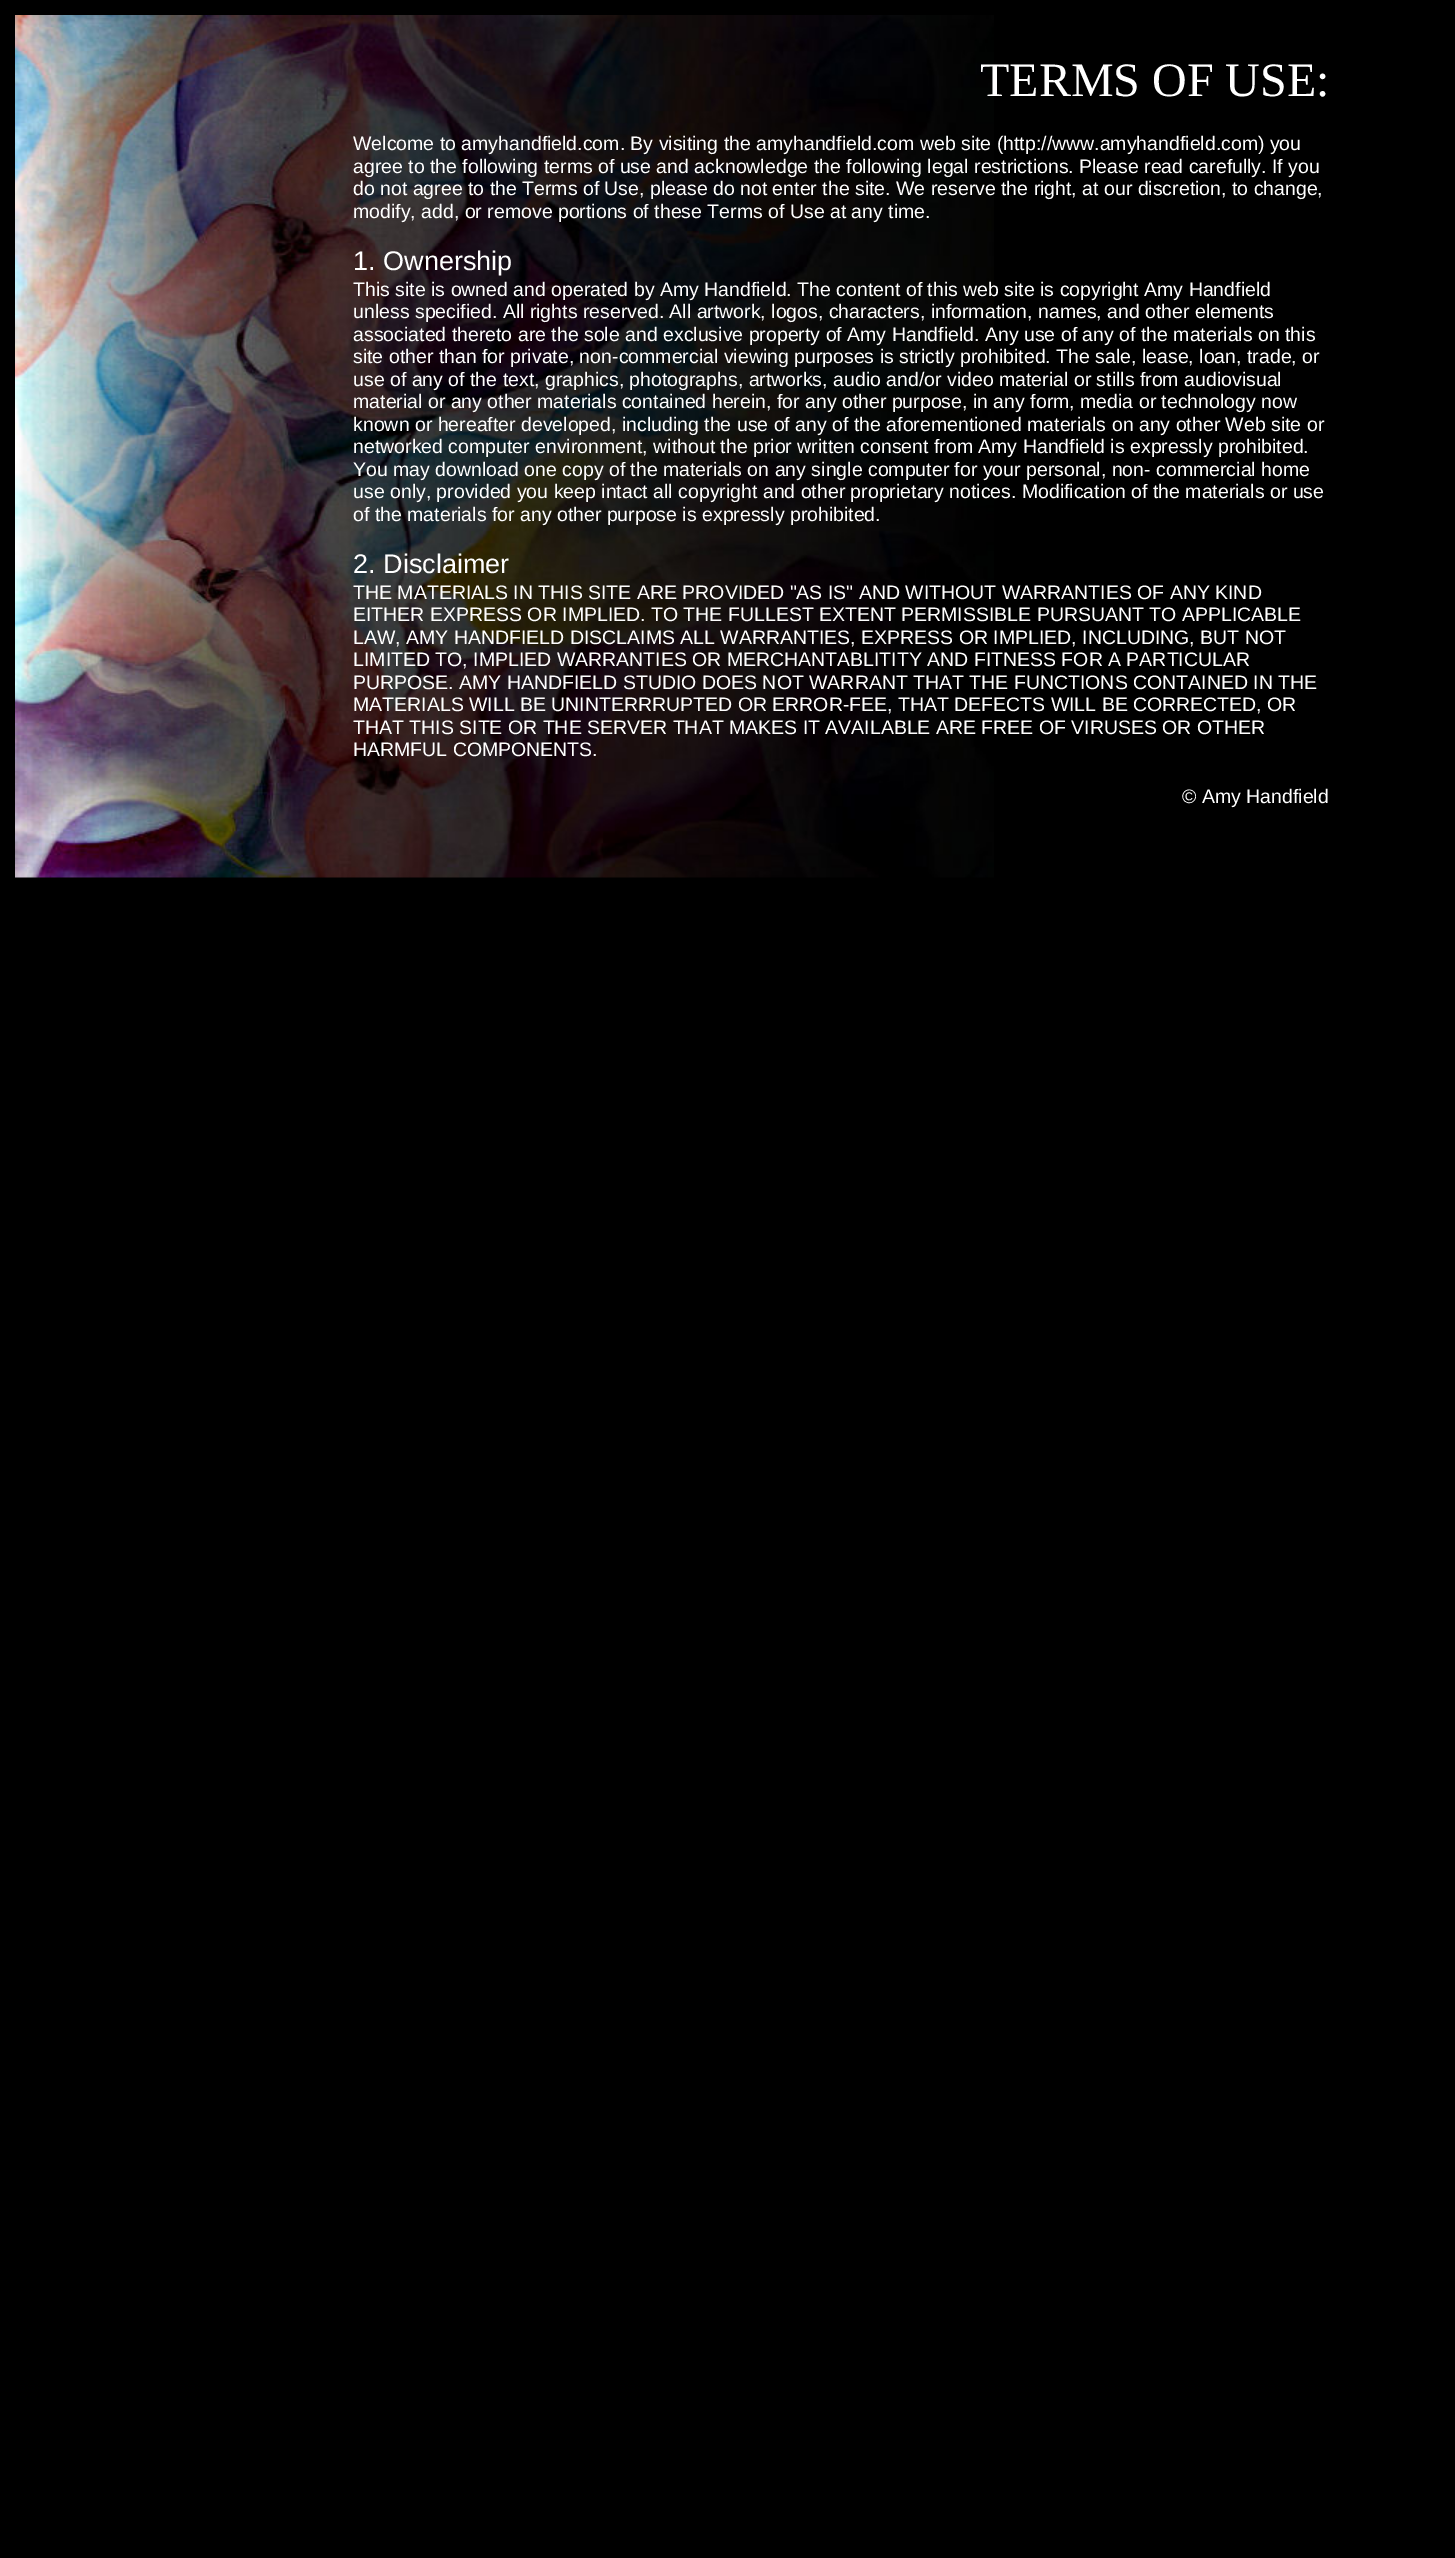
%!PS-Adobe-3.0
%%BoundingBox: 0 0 1455 2558
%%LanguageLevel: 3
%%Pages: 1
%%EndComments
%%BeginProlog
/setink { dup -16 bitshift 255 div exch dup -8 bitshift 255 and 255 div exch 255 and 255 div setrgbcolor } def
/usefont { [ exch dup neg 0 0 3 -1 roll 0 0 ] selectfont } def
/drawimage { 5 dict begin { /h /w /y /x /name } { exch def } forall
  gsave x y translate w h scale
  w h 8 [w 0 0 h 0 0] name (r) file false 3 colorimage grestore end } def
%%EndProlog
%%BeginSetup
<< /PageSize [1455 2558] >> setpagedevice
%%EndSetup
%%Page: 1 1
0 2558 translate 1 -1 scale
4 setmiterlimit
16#000000 setink
0 0 1455 2558 rectfill
(img1.raw) 15 15 979 863 drawimage
/LiberationSerif-Regular 48 usefont
16#FFFFFF setink
980 96 moveto (TERMS OF USE:) show
/LiberationSans-Regular 19.5 usefont
[
    [(Welcome to amyhandfield.com. By visiting the amyhandfield.com web site \(http://www.amyhandfield.com\) you) 353 150]
    [(agree to the following terms of use and acknowledge the following legal restrictions. Please read carefully. If you) 353 173]
    [(do not agree to the Terms of Use, please do not enter the site. We reserve the right, at our discretion, to change,) 353 195]
    [(modify, add, or remove portions of these Terms of Use at any time.) 353 218]
] { aload pop moveto show } forall
/LiberationSans-Regular 27 usefont
353 270 moveto (1. Ownership) show
/LiberationSans-Regular 19.5 usefont
[
    [(This site is owned and operated by Amy Handfield. The content of this web site is copyright Amy Handfield) 353 296]
    [(unless specified. All rights reserved. All artwork, logos, characters, information, names, and other elements) 353 318]
    [(associated thereto are the sole and exclusive property of Amy Handfield. Any use of any of the materials on this) 353 341]
    [(site other than for private, non-commercial viewing purposes is strictly prohibited. The sale, lease, loan, trade, or) 353 363]
    [(use of any of the text, graphics, photographs, artworks, audio and/or video material or stills from audiovisual) 353 386]
    [(material or any other materials contained herein, for any other purpose, in any form, media or technology now) 353 408]
    [(known or hereafter developed, including the use of any of the aforementioned materials on any other Web site or) 353 431]
    [(networked computer environment, without the prior written consent from Amy Handfield is expressly prohibited.) 353 453]
    [(You may download one copy of the materials on any single computer for your personal, non- commercial home) 353 476]
    [(use only, provided you keep intact all copyright and other proprietary notices. Modification of the materials or use) 353 498]
    [(of the materials for any other purpose is expressly prohibited.) 353 521]
] { aload pop moveto show } forall
/LiberationSans-Regular 27 usefont
353 573 moveto (2. Disclaimer) show
/LiberationSans-Regular 19.5 usefont
[
    [(THE MATERIALS IN THIS SITE ARE PROVIDED "AS IS" AND WITHOUT WARRANTIES OF ANY KIND) 353 599]
    [(EITHER EXPRESS OR IMPLIED. TO THE FULLEST EXTENT PERMISSIBLE PURSUANT TO APPLICABLE) 353 621]
    [(LAW, AMY HANDFIELD DISCLAIMS ALL WARRANTIES, EXPRESS OR IMPLIED, INCLUDING, BUT NOT) 353 644]
    [(LIMITED TO, IMPLIED WARRANTIES OR MERCHANTABLITITY AND FITNESS FOR A PARTICULAR) 353 666]
    [(PURPOSE. AMY HANDFIELD STUDIO DOES NOT WARRANT THAT THE FUNCTIONS CONTAINED IN THE) 353 689]
    [(MATERIALS WILL BE UNINTERRRUPTED OR ERROR-FEE, THAT DEFECTS WILL BE CORRECTED, OR) 353 711]
    [(THAT THIS SITE OR THE SERVER THAT MAKES IT AVAILABLE ARE FREE OF VIRUSES OR OTHER) 353 734]
    [(HARMFUL COMPONENTS.) 353 756]
    [(© Amy Handfield) 1182 803]
] { aload pop moveto show } forall
showpage
%%EOF
